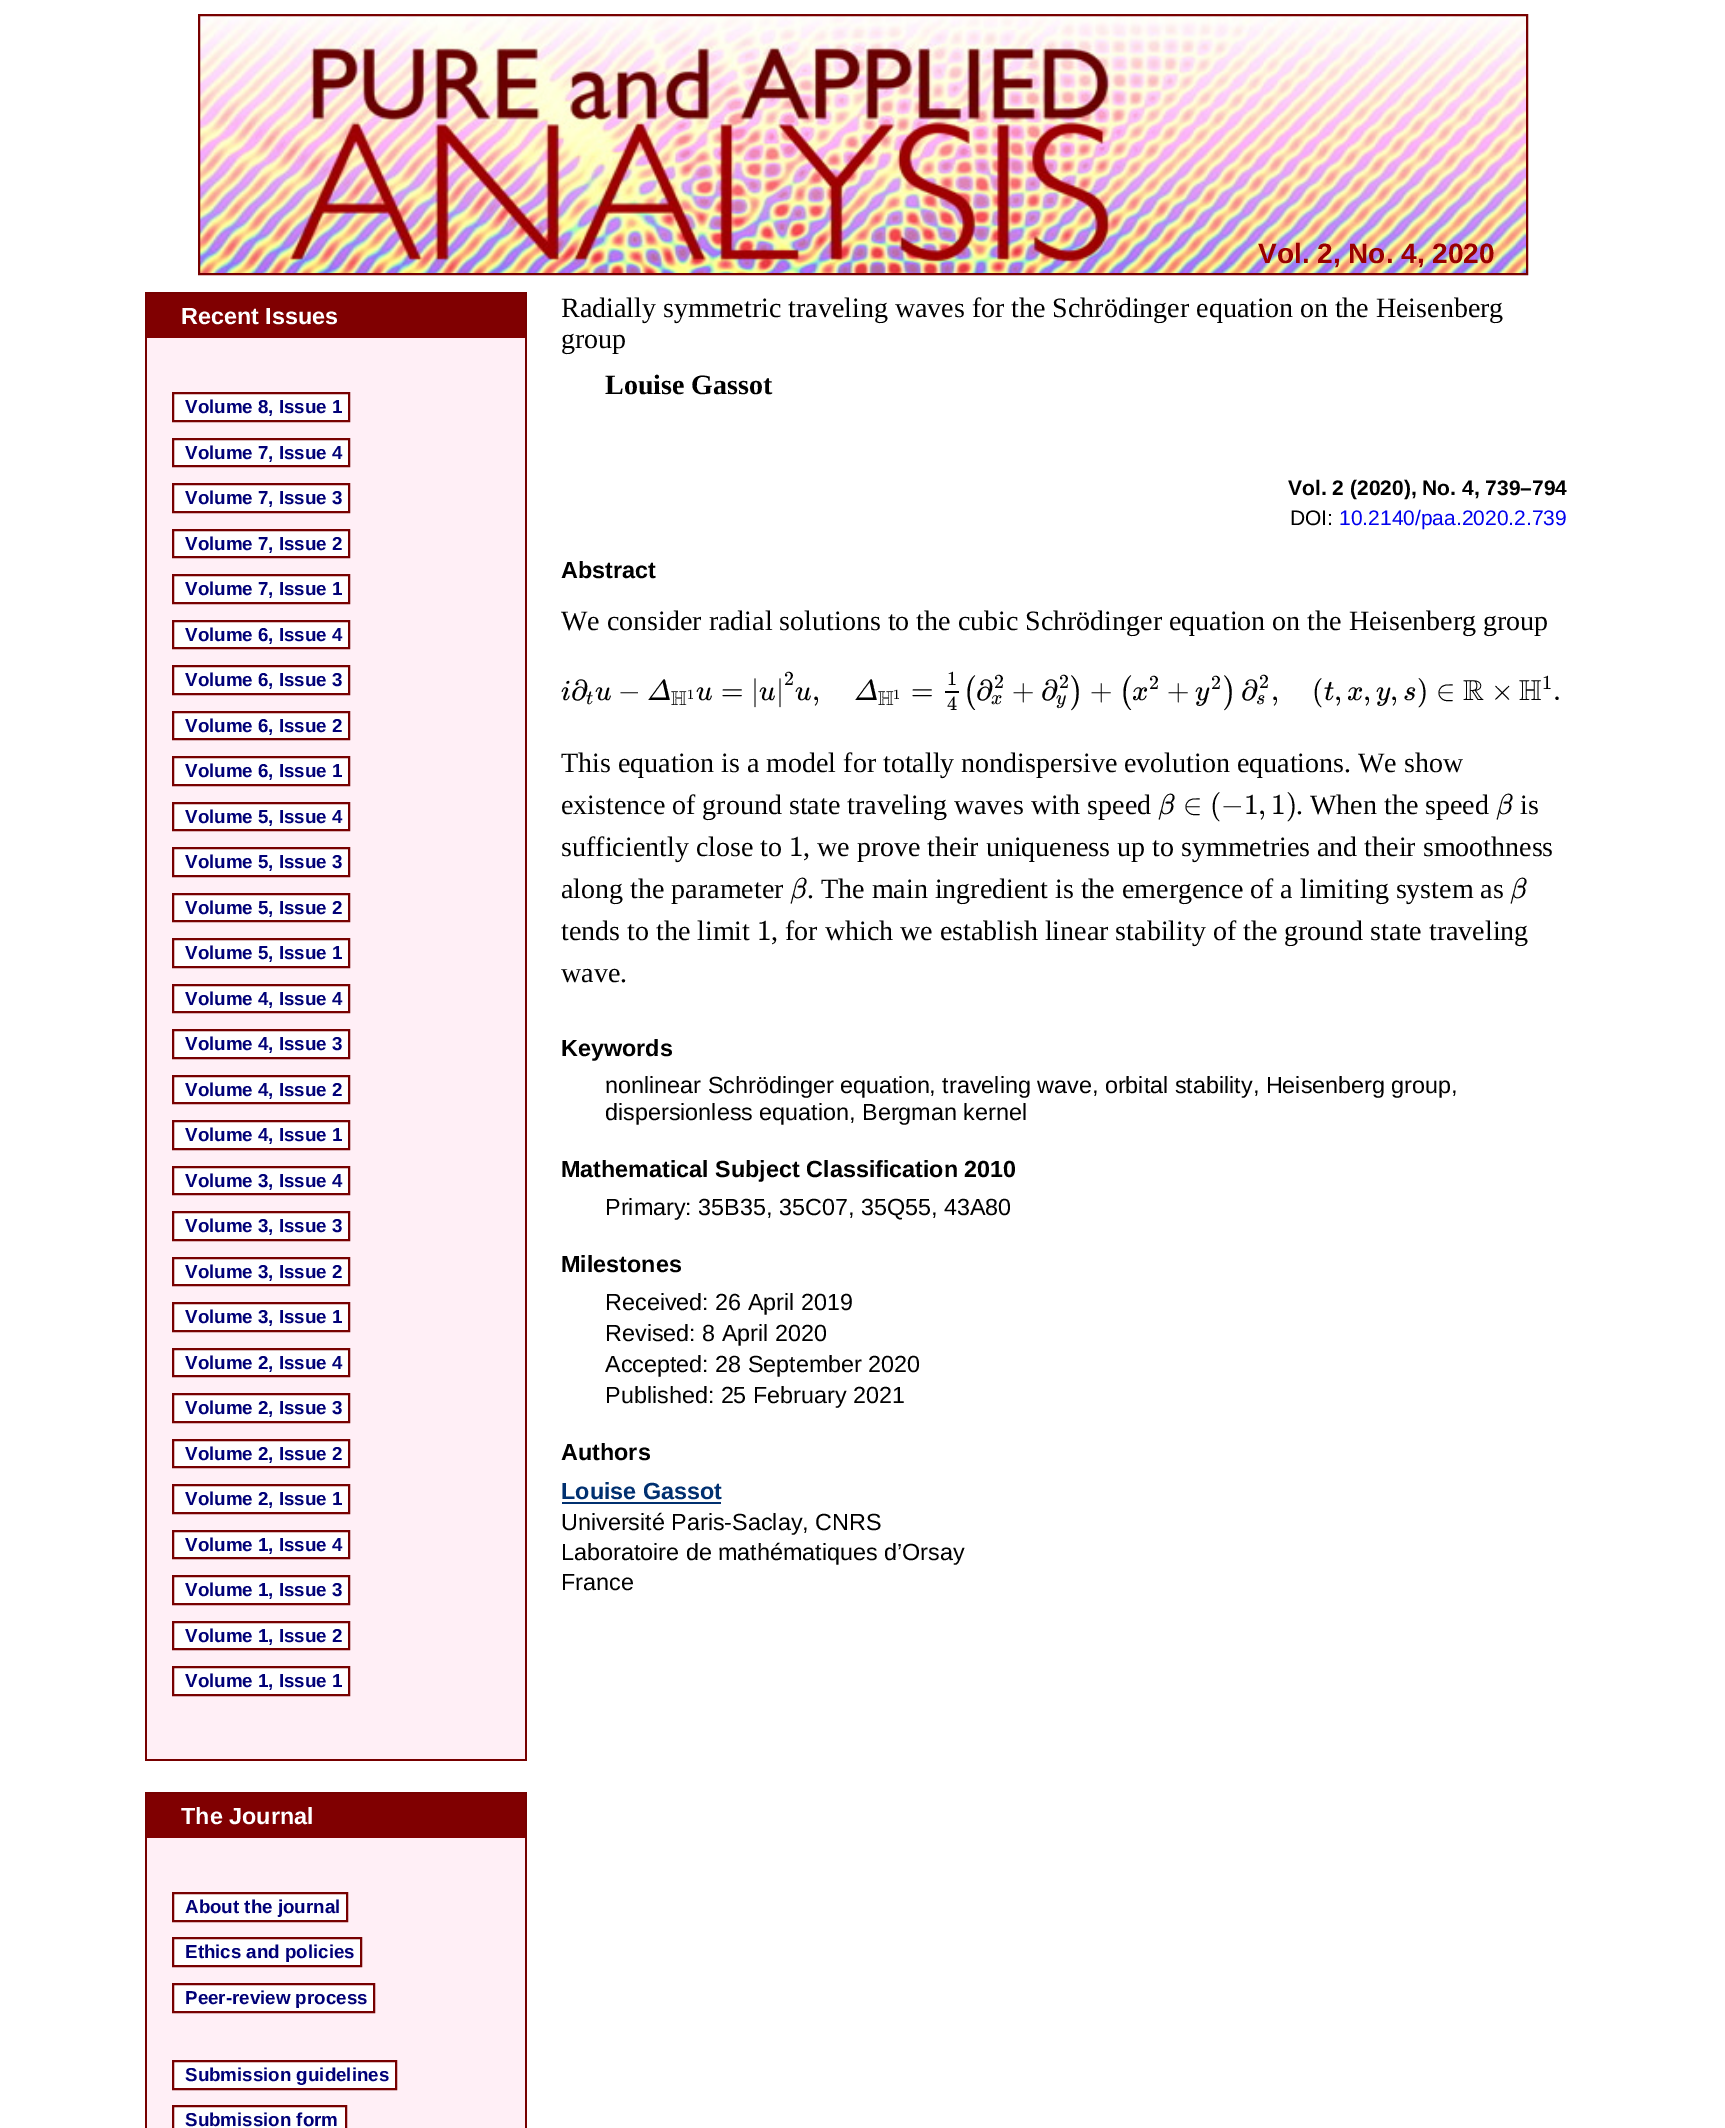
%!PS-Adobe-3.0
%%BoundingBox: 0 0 1725 2128
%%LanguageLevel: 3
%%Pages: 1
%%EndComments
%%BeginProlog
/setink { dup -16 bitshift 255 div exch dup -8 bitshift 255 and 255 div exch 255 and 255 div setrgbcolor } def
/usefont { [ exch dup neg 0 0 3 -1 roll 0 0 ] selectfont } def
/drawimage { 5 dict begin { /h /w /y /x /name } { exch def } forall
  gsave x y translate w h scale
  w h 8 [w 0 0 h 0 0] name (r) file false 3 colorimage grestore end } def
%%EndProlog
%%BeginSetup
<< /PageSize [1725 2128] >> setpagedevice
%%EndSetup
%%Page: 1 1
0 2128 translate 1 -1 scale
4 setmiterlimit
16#FFFFFF setink
0 0 1725 2128 rectfill
(img1.raw) 200 16 1326 257 drawimage
16#770000 setink
2 setlinewidth
199 15 1328 259 rectstroke
/LiberationSans-Bold 28 usefont
16#990000 setink
1258 263 moveto (Vol. 2, No. 4, 2020) show
[
    [147 338 378 1421 16#FFEFF6]
    [145 292 382 2 16#770000]
    [525 292 2 1469 16#770000]
    [145 292 2 1435 16#770000]
    [147 294 378 44 16#800001]
] { aload pop setink rectfill } forall
/LiberationSans-Bold 23.35 usefont
16#FFFFFF setink
181 324 moveto (Recent Issues) show
173 393 moveto 349 393 lineto 349 421 lineto 173 421 lineto closepath gsave fill grestore
16#770000 setink
stroke
/LiberationSans-Bold 18.75 usefont
16#000077 setink
185 413 moveto (Volume 8, Issue 1) show
16#FFFFFF setink
173 439 moveto 349 439 lineto 349 466 lineto 173 466 lineto closepath gsave fill grestore
16#770000 setink
stroke
16#000077 setink
185 459 moveto (Volume 7, Issue 4) show
16#FFFFFF setink
173 484 moveto 349 484 lineto 349 512 lineto 173 512 lineto closepath gsave fill grestore
16#770000 setink
stroke
16#000077 setink
185 504 moveto (Volume 7, Issue 3) show
16#FFFFFF setink
173 530 moveto 349 530 lineto 349 557 lineto 173 557 lineto closepath gsave fill grestore
16#770000 setink
stroke
16#000077 setink
185 550 moveto (Volume 7, Issue 2) show
16#FFFFFF setink
173 575 moveto 349 575 lineto 349 603 lineto 173 603 lineto closepath gsave fill grestore
16#770000 setink
stroke
16#000077 setink
185 595 moveto (Volume 7, Issue 1) show
16#FFFFFF setink
173 621 moveto 349 621 lineto 349 648 lineto 173 648 lineto closepath gsave fill grestore
16#770000 setink
stroke
16#000077 setink
185 641 moveto (Volume 6, Issue 4) show
16#FFFFFF setink
173 666 moveto 349 666 lineto 349 694 lineto 173 694 lineto closepath gsave fill grestore
16#770000 setink
stroke
16#000077 setink
185 686 moveto (Volume 6, Issue 3) show
16#FFFFFF setink
173 712 moveto 349 712 lineto 349 739 lineto 173 739 lineto closepath gsave fill grestore
16#770000 setink
stroke
16#000077 setink
185 732 moveto (Volume 6, Issue 2) show
16#FFFFFF setink
173 757 moveto 349 757 lineto 349 785 lineto 173 785 lineto closepath gsave fill grestore
16#770000 setink
stroke
16#000077 setink
185 777 moveto (Volume 6, Issue 1) show
16#FFFFFF setink
173 803 moveto 349 803 lineto 349 830 lineto 173 830 lineto closepath gsave fill grestore
16#770000 setink
stroke
16#000077 setink
185 823 moveto (Volume 5, Issue 4) show
16#FFFFFF setink
173 848 moveto 349 848 lineto 349 876 lineto 173 876 lineto closepath gsave fill grestore
16#770000 setink
stroke
16#000077 setink
185 868 moveto (Volume 5, Issue 3) show
16#FFFFFF setink
173 894 moveto 349 894 lineto 349 921 lineto 173 921 lineto closepath gsave fill grestore
16#770000 setink
stroke
16#000077 setink
185 914 moveto (Volume 5, Issue 2) show
16#FFFFFF setink
173 939 moveto 349 939 lineto 349 967 lineto 173 967 lineto closepath gsave fill grestore
16#770000 setink
stroke
16#000077 setink
185 959 moveto (Volume 5, Issue 1) show
16#FFFFFF setink
173 985 moveto 349 985 lineto 349 1012 lineto 173 1012 lineto closepath gsave fill grestore
16#770000 setink
stroke
16#000077 setink
185 1005 moveto (Volume 4, Issue 4) show
16#FFFFFF setink
173 1030 moveto 349 1030 lineto 349 1058 lineto 173 1058 lineto closepath gsave fill grestore
16#770000 setink
stroke
16#000077 setink
185 1050 moveto (Volume 4, Issue 3) show
16#FFFFFF setink
173 1076 moveto 349 1076 lineto 349 1103 lineto 173 1103 lineto closepath gsave fill grestore
16#770000 setink
stroke
16#000077 setink
185 1096 moveto (Volume 4, Issue 2) show
16#FFFFFF setink
173 1121 moveto 349 1121 lineto 349 1149 lineto 173 1149 lineto closepath gsave fill grestore
16#770000 setink
stroke
16#000077 setink
185 1141 moveto (Volume 4, Issue 1) show
16#FFFFFF setink
173 1167 moveto 349 1167 lineto 349 1194 lineto 173 1194 lineto closepath gsave fill grestore
16#770000 setink
stroke
16#000077 setink
185 1187 moveto (Volume 3, Issue 4) show
16#FFFFFF setink
173 1212 moveto 349 1212 lineto 349 1240 lineto 173 1240 lineto closepath gsave fill grestore
16#770000 setink
stroke
16#000077 setink
185 1232 moveto (Volume 3, Issue 3) show
16#FFFFFF setink
173 1258 moveto 349 1258 lineto 349 1285 lineto 173 1285 lineto closepath gsave fill grestore
16#770000 setink
stroke
16#000077 setink
185 1278 moveto (Volume 3, Issue 2) show
16#FFFFFF setink
173 1303 moveto 349 1303 lineto 349 1331 lineto 173 1331 lineto closepath gsave fill grestore
16#770000 setink
stroke
16#000077 setink
185 1323 moveto (Volume 3, Issue 1) show
16#FFFFFF setink
173 1349 moveto 349 1349 lineto 349 1376 lineto 173 1376 lineto closepath gsave fill grestore
16#770000 setink
stroke
16#000077 setink
185 1369 moveto (Volume 2, Issue 4) show
16#FFFFFF setink
173 1394 moveto 349 1394 lineto 349 1422 lineto 173 1422 lineto closepath gsave fill grestore
16#770000 setink
stroke
16#000077 setink
185 1414 moveto (Volume 2, Issue 3) show
16#FFFFFF setink
173 1440 moveto 349 1440 lineto 349 1467 lineto 173 1467 lineto closepath gsave fill grestore
16#770000 setink
stroke
16#000077 setink
185 1460 moveto (Volume 2, Issue 2) show
16#FFFFFF setink
173 1485 moveto 349 1485 lineto 349 1513 lineto 173 1513 lineto closepath gsave fill grestore
16#770000 setink
stroke
16#000077 setink
185 1505 moveto (Volume 2, Issue 1) show
16#FFFFFF setink
173 1531 moveto 349 1531 lineto 349 1558 lineto 173 1558 lineto closepath gsave fill grestore
16#770000 setink
stroke
16#000077 setink
185 1551 moveto (Volume 1, Issue 4) show
16#FFFFFF setink
173 1576 moveto 349 1576 lineto 349 1604 lineto 173 1604 lineto closepath gsave fill grestore
16#770000 setink
stroke
16#000077 setink
185 1596 moveto (Volume 1, Issue 3) show
16#FFFFFF setink
173 1622 moveto 349 1622 lineto 349 1649 lineto 173 1649 lineto closepath gsave fill grestore
16#770000 setink
stroke
16#000077 setink
185 1642 moveto (Volume 1, Issue 2) show
16#FFFFFF setink
173 1667 moveto 349 1667 lineto 349 1695 lineto 173 1695 lineto closepath gsave fill grestore
16#770000 setink
stroke
16#000077 setink
185 1687 moveto (Volume 1, Issue 1) show
[
    [145 1759 382 2 16#770000]
    [145 1727 2 34 16#770000]
    [147 1838 378 290 16#FFEFF6]
    [145 1792 382 2 16#770000]
    [525 1792 2 336 16#770000]
    [145 1792 2 336 16#770000]
    [147 1794 378 44 16#800001]
] { aload pop setink rectfill } forall
/LiberationSans-Bold 23.35 usefont
16#FFFFFF setink
181 1824 moveto (The Journal) show
173 1893 moveto 347 1893 lineto 347 1921 lineto 173 1921 lineto closepath gsave fill grestore
16#770000 setink
stroke
/LiberationSans-Bold 18.75 usefont
16#000077 setink
185 1913 moveto (About the journal) show
16#FFFFFF setink
173 1938 moveto 361 1938 lineto 361 1966 lineto 173 1966 lineto closepath gsave fill grestore
16#770000 setink
stroke
16#000077 setink
185 1958 moveto (Ethics and policies) show
16#FFFFFF setink
173 1984 moveto 374 1984 lineto 374 2012 lineto 173 2012 lineto closepath gsave fill grestore
16#770000 setink
stroke
16#000077 setink
185 2004 moveto (Peer-review process) show
16#FFFFFF setink
173 2061 moveto 396 2061 lineto 396 2089 lineto 173 2089 lineto closepath gsave fill grestore
16#770000 setink
stroke
16#000077 setink
185 2081 moveto (Submission guidelines) show
16#FFFFFF setink
173 2106 moveto 346 2106 lineto 346 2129 lineto 173 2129 lineto closepath gsave fill grestore
16#770000 setink
stroke
16#000077 setink
185 2126 moveto (Submission form) show
/LiberationSerif-Regular 28 usefont
16#000000 setink
561 317 moveto (Radially symmetric traveling waves for the Schrödinger equation on the Heisenberg) show
561 348 moveto (group) show
/LiberationSerif-Bold 28 usefont
605 394 moveto (Louise Gassot) show
/LiberationSans-Bold 21 usefont
1288 495 moveto (Vol. 2 \(2020\), No. 4, 739–794) show
/LiberationSans-Regular 21 usefont
1290 525 moveto (DOI:) show
16#0000EE setink
1339 525 moveto (10.2140/paa.2020.2.739) show
/LiberationSans-Bold 23.35 usefont
16#000000 setink
561 578 moveto (Abstract) show
/LiberationSerif-Regular 28 usefont
561 630 moveto (We consider radial solutions to the cubic Schrödinger equation on the Heisenberg group) show
/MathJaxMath-Italic 29 usefont
561 700 moveto (i) show
/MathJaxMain-Regular 29 usefont
571 700 moveto (∂) show
/MathJaxMath-Italic 20 usefont
586 704 moveto (t) show
/MathJaxMath-Italic 29 usefont
595 700 moveto (u) show
/MathJaxMain-Regular 29 usefont
618 700 moveto (−) show
/MathJaxMath-Italic 29 usefont
647 700 moveto (Δ) show
/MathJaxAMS-Regular 20 usefont
671 705 moveto (H) show
/MathJaxMain-Regular 14 usefont
687 699 moveto (1) show
/MathJaxMath-Italic 29 usefont
696 700 moveto (u) show
/MathJaxMain-Regular 29 usefont
721 700 moveto (=) show
751 700 moveto (|) show
/MathJaxMath-Italic 29 usefont
759 700 moveto (u) show
/MathJaxMain-Regular 29 usefont
776 700 moveto (|) show
/MathJaxMain-Regular 20 usefont
784 685 moveto (2) show
/MathJaxMath-Italic 29 usefont
795 700 moveto (u) show
854 700 moveto (Δ) show
/MathJaxAMS-Regular 20 usefont
878 705 moveto (H) show
/MathJaxMain-Regular 14 usefont
893 699 moveto (1) show
/MathJaxMain-Regular 29 usefont
911 700 moveto (=) show
/MathJaxMain-Regular 20 usefont
947 685 moveto (1) show
945 691 14 2 rectfill
947 710 moveto (4) show
/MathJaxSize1-Regular 29 usefont
963 700 moveto (\() show
/MathJaxMain-Regular 29 usefont
976 700 moveto (∂) show
/MathJaxMain-Regular 20 usefont
994 688 moveto (2) show
/MathJaxMath-Italic 20 usefont
991 704 moveto (x) show
/MathJaxMain-Regular 29 usefont
1012 700 moveto (+) show
1041 700 moveto (∂) show
/MathJaxMain-Regular 20 usefont
1059 688 moveto (2) show
/MathJaxMath-Italic 20 usefont
1056 704 moveto (y) show
/MathJaxSize1-Regular 29 usefont
1070 700 moveto (\)) show
/MathJaxMain-Regular 29 usefont
1090 700 moveto (+) show
/MathJaxSize1-Regular 29 usefont
1119 700 moveto (\() show
/MathJaxMain-Regular 20 usefont
1149 689 moveto (2) show
/MathJaxMath-Italic 29 usefont
1132 700 moveto (x) show
/MathJaxMain-Regular 29 usefont
1167 700 moveto (+) show
/MathJaxMain-Regular 20 usefont
1211 689 moveto (2) show
/MathJaxMath-Italic 29 usefont
1195 700 moveto (y) show
/MathJaxSize1-Regular 29 usefont
1223 700 moveto (\)) show
/MathJaxMain-Regular 29 usefont
1241 700 moveto (∂) show
/MathJaxMain-Regular 20 usefont
1259 688 moveto (2) show
/MathJaxMath-Italic 20 usefont
1256 704 moveto (s) show
/MathJaxMain-Regular 29 usefont
1312 700 moveto (\() show
/MathJaxMath-Italic 29 usefont
1324 700 moveto (t) show
/MathJaxMain-Regular 29 usefont
1334 700 moveto (,) show
/MathJaxMath-Italic 29 usefont
1347 700 moveto (x) show
/MathJaxMain-Regular 29 usefont
1363 700 moveto (,) show
/MathJaxMath-Italic 29 usefont
1376 700 moveto (y) show
/MathJaxMain-Regular 29 usefont
1390 700 moveto (,) show
/MathJaxMath-Italic 29 usefont
1403 700 moveto (s) show
/MathJaxMain-Regular 29 usefont
1417 700 moveto (\)) show
1436 700 moveto (∈) show
/MathJaxAMS-Regular 29 usefont
1463 700 moveto (R) show
/MathJaxMain-Regular 29 usefont
1491 700 moveto (×) show
/MathJaxAMS-Regular 29 usefont
1519 700 moveto (H) show
/MathJaxMain-Regular 20 usefont
1542 689 moveto (1) show
/MathJaxMain-Regular 29 usefont
[
    [(,) 812 700]
    [(,) 1271 700]
    [(.) 1553 700]
] { aload pop moveto show } forall
/LiberationSerif-Regular 28 usefont
561 772 moveto (This equation is a model for totally nondispersive evolution equations. We show) show
561 814 moveto (existence of ground state traveling waves with speed) show
/MathJaxMath-Italic 29 usefont
1158 814 moveto (β) show
/MathJaxMain-Regular 29 usefont
[
    [(∈) 1183 814]
    [(\(−1,) 1210 814]
    [(1\)) 1271 814]
] { aload pop moveto show } forall
/LiberationSerif-Regular 28 usefont
1296 814 moveto (. When the speed) show
/MathJaxMath-Italic 29 usefont
1496 814 moveto (β) show
/LiberationSerif-Regular 28 usefont
1520 814 moveto (is) show
561 856 moveto (sufficiently close to) show
/MathJaxMain-Regular 29 usefont
789 856 moveto (1) show
/LiberationSerif-Regular 28 usefont
803 856 moveto (, we prove their uniqueness up to symmetries and their smoothness) show
561 898 moveto (along the parameter) show
/MathJaxMath-Italic 29 usefont
790 898 moveto (β) show
/LiberationSerif-Regular 28 usefont
807 898 moveto (. The main ingredient is the emergence of a limiting system as) show
/MathJaxMath-Italic 29 usefont
1510 898 moveto (β) show
/LiberationSerif-Regular 28 usefont
561 940 moveto (tends to the limit) show
/MathJaxMain-Regular 29 usefont
757 940 moveto (1) show
/LiberationSerif-Regular 28 usefont
771 940 moveto (, for which we establish linear stability of the ground state traveling) show
561 982 moveto (wave.) show
/LiberationSans-Bold 23.35 usefont
561 1056 moveto (Keywords) show
/LiberationSans-Regular 23.35 usefont
605 1093 moveto (nonlinear Schrödinger equation, traveling wave, orbital stability, Heisenberg group,) show
605 1120 moveto (dispersionless equation, Bergman kernel) show
/LiberationSans-Bold 23.35 usefont
561 1177 moveto (Mathematical Subject Classification 2010) show
/LiberationSans-Regular 23.35 usefont
605 1215 moveto (Primary: 35B35, 35C07, 35Q55, 43A80) show
/LiberationSans-Bold 23.35 usefont
561 1272 moveto (Milestones) show
/LiberationSans-Regular 23.35 usefont
[
    [(Received: 26 April 2019) 605 1310]
    [(Revised: 8 April 2020) 605 1341]
    [(Accepted: 28 September 2020) 605 1372]
    [(Published: 25 February 2021) 605 1403]
] { aload pop moveto show } forall
/LiberationSans-Bold 23.35 usefont
561 1460 moveto (Authors) show
16#003070 setink
561 1499 moveto (Louise Gassot) show
562 1502 159 2 rectfill
/LiberationSans-Regular 23.35 usefont
16#000000 setink
[
    [(Université Paris-Saclay, CNRS) 561 1530]
    [(Laboratoire de mathématiques d’Orsay) 561 1560]
    [(France) 561 1590]
] { aload pop moveto show } forall
showpage
%%EOF
